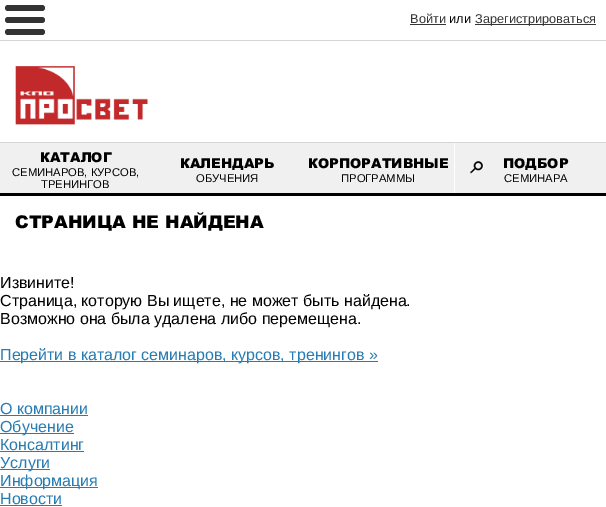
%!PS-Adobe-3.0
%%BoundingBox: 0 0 606 507
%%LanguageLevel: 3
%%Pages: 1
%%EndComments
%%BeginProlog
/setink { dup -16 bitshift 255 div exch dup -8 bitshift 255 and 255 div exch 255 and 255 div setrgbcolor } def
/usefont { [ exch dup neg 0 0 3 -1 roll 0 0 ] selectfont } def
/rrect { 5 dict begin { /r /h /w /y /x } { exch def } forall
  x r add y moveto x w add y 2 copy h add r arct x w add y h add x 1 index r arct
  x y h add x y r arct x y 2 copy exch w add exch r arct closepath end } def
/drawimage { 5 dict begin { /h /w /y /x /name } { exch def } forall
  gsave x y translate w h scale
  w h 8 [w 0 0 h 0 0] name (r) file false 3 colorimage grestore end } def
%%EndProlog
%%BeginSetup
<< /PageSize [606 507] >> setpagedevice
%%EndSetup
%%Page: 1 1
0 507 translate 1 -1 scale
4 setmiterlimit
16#FFFFFF setink
0 0 606 507 rectfill
16#D3D7D8 setink
0 40 606 1 rectfill
16#333333 setink
5 5 40 6 3 rrect fill
5 17 40 6 3 rrect fill
5 29 40 6 3 rrect fill
/LiberationSans-Regular 12.75 usefont
16#343434 setink
410 23 moveto (Войти) show
410 24 36 1 rectfill
16#000000 setink
449 23 moveto (или) show
16#343434 setink
475 24 121 1 rectfill
475 23 moveto (Зарегистрироваться) show
(img1.raw) 15 66 133 59 drawimage
[
    [0 142 606 1 16#D3D7D8]
    [0 193 606 3 16#000000]
    [0 143 454 50 16#F0F0F0]
] { aload pop setink rectfill } forall
/Arial-Black 13.5 usefont
16#000000 setink
40 162 moveto (КАТАЛОГ) show
/LiberationSans-Regular 11.25 usefont
12 176 moveto (СЕМИНАРОВ, КУРСОВ,) show
41 188 moveto (ТРЕНИНГОВ) show
/Arial-Black 13.5 usefont
180 168 moveto (КАЛЕНДАРЬ) show
/LiberationSans-Regular 11.25 usefont
196 182 moveto (ОБУЧЕНИЯ) show
/Arial-Black 13.5 usefont
308 168 moveto (КОРПОРАТИВНЫЕ) show
/LiberationSans-Regular 11.25 usefont
341 182 moveto (ПРОГРАММЫ) show
16#F0F0F0 setink
455 143 151 50 rectfill
(img2.raw) 470 161 14 13 drawimage
/Arial-Black 13.5 usefont
16#000000 setink
503 168 moveto (ПОДБОР) show
/LiberationSans-Regular 11.25 usefont
504 182 moveto (СЕМИНАРА) show
/Arial-Black 17.6 usefont
15 228 moveto (СТРАНИЦА НЕ НАЙДЕНА) show
/LiberationSans-Regular 16 usefont
[
    [(Извините!) 0 288]
    [(Страница, которую Вы ищете, не может быть найдена.) 0 306]
    [(Возможно она была удалена либо перемещена.) 0 324]
] { aload pop moveto show } forall
16#267CB3 setink
0 361 378 1 rectfill
0 360 moveto (Перейти в каталог семинаров, курсов, тренингов ») show
0 414 moveto (О компании) show
0 415 88 1 rectfill
0 433 74 1 rectfill
0 432 moveto (Обучение) show
0 450 moveto (Консалтинг) show
0 451 84 1 rectfill
0 469 50 1 rectfill
0 468 moveto (Услуги) show
0 487 98 1 rectfill
0 486 moveto (Информация) show
0 504 moveto (Новости) show
0 505 62 1 rectfill
showpage
%%EOF
